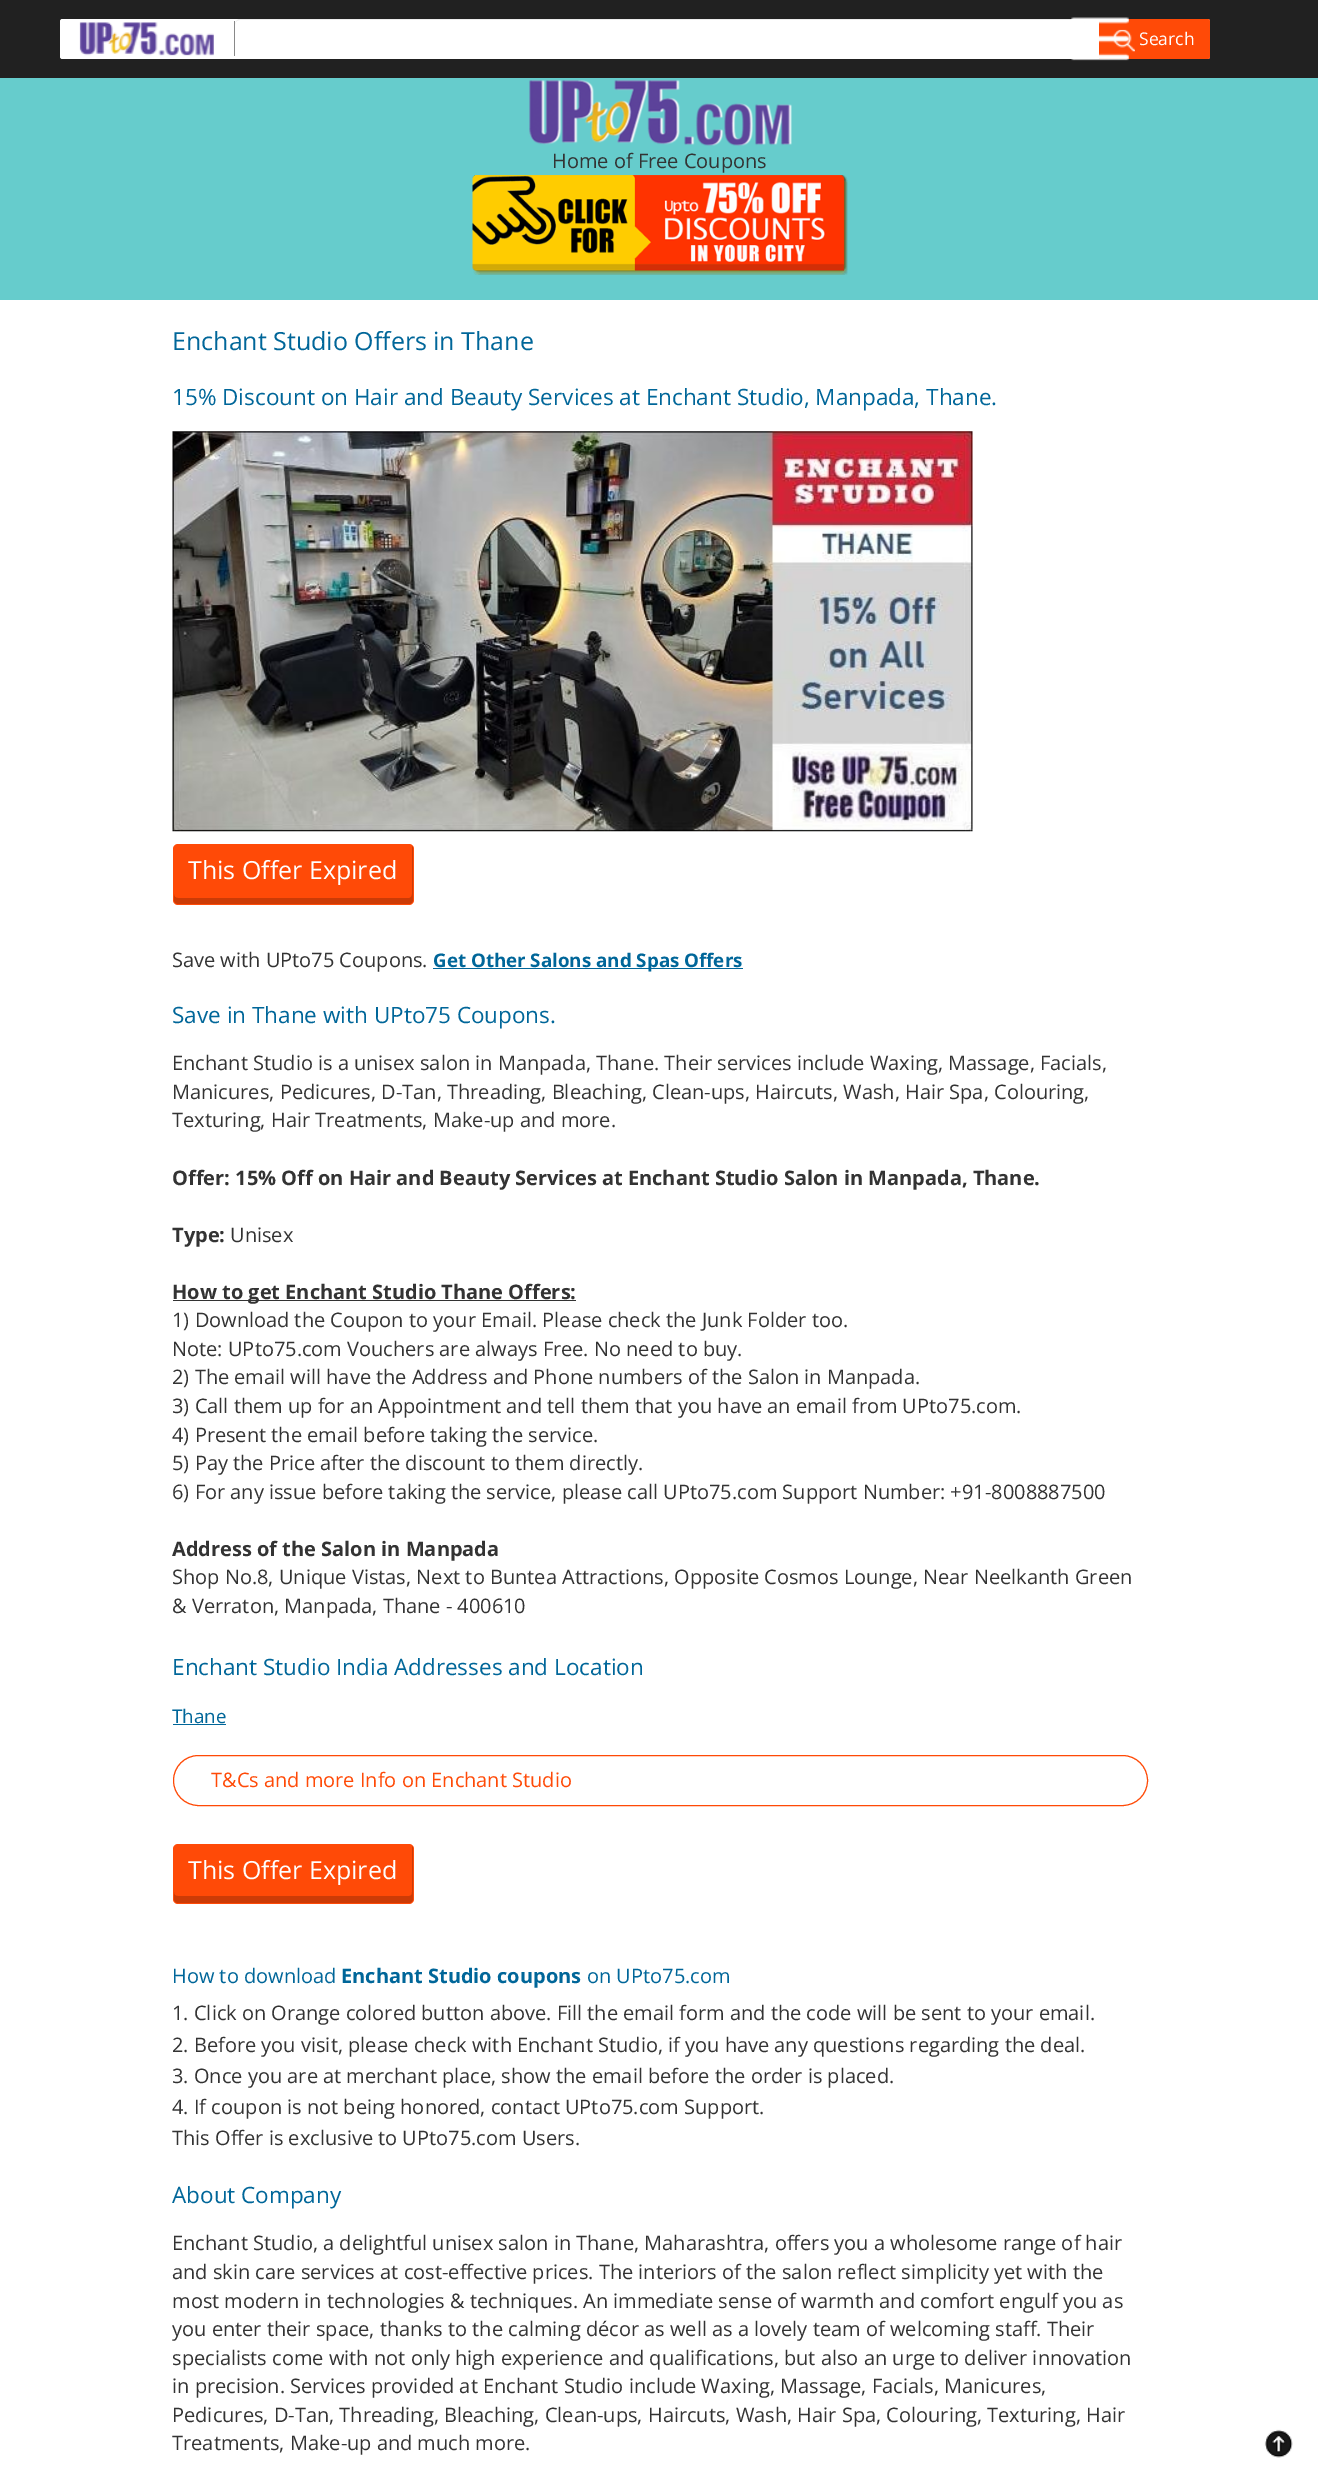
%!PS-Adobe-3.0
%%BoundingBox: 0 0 1318 2483
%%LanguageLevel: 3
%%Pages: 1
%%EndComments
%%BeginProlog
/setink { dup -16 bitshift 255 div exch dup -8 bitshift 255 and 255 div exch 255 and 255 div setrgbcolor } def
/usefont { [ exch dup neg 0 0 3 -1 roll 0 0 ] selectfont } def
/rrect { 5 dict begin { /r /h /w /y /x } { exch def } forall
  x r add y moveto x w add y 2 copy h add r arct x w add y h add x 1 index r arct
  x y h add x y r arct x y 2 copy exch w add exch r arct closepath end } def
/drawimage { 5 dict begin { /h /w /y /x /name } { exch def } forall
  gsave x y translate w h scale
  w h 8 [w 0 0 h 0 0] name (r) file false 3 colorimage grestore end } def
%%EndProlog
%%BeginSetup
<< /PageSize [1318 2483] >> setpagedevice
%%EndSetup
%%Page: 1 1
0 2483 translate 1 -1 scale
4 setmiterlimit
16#FFFFFF setink
0 0 1318 2483 rectfill
16#212121 setink
0 0 1318 78 rectfill
16#FFFFFF setink
60 19 1150 40 2.5 rrect fill
16#ECECEC setink
240 20 moveto 1080 20 lineto 1083 20 1085 22 1085 25 curveto 1085 22 1083 19 1080 19 curveto 240 19 lineto 237 19 235 22 235 25 curveto 235 22 237 20 240 20 curveto closepath fill
16#FF4A07 setink
1099 19 moveto 1207.5 19 lineto 1209 19 1210 20 1210 21.5 curveto 1210 56.5 lineto 1210 58 1209 59 1207.5 59 curveto 1099 59 lineto closepath fill
(img3.raw) 1113 29 22 23 drawimage
(img1.raw) 1071 17 58 44 drawimage
(img2.raw) 79 22 135 34 drawimage
16#898989 setink
234 21 1 35 rectfill
/OpenSans-Regular 17.5 usefont
16#FFFFFF setink
1139 45 moveto (Search) show
16#66CCCC setink
0 78 1318 222 rectfill
(img4.raw) 529 80 263 66 drawimage
/OpenSans-Regular 20 usefont
16#333333 setink
552 168 moveto (Home of Free Coupons) show
(img5.raw) 472 175 376 100 drawimage
/OpenSans-Regular 25 usefont
16#006699 setink
172 350 moveto (Enchant Studio Offers in Thane) show
/OpenSans-Regular 22.5 usefont
172 405 moveto (15% Discount on Hair and Beauty Services at Enchant Studio, Manpada, Thane.) show
(img6.raw) 172 431 801 401 drawimage
16#FF4A07 setink
173 844 241 61 5 rrect fill
16#CC3B06 setink
174 894 moveto 174 900 lineto 174 902 176 904 178 904 curveto 409 904 lineto 411 904 413 902 413 900 curveto 413 849 lineto 413 848 413 847 412 846 curveto 412 894 lineto 412 896 411 898 409 898 curveto 178 898 lineto 175 898 174 896 174 894 curveto closepath fill
/OpenSans-Regular 25 usefont
16#FFFFFF setink
188 879 moveto (This Offer Expired) show
/OpenSans-Regular 20 usefont
16#333333 setink
172 967 moveto (Save with UPto75 Coupons.) show
16#006699 setink
433 968 310 1 rectfill
/OpenSans-Bold 18.75 usefont
433 967 moveto (Get Other Salons and Spas Offers) show
/OpenSans-Regular 22.5 usefont
172 1023 moveto (Save in Thane with UPto75 Coupons.) show
/OpenSans-Regular 20 usefont
16#333333 setink
[
    [(Enchant Studio is a unisex salon in Manpada, Thane. Their services include Waxing, Massage, Facials,) 172 1070]
    [(Manicures, Pedicures, D-Tan, Threading, Bleaching, Clean-ups, Haircuts, Wash, Hair Spa, Colouring,) 172 1099]
    [(Texturing, Hair Treatments, Make-up and more.) 172 1127]
] { aload pop moveto show } forall
/OpenSans-Bold 20 usefont
172 1185 moveto (Offer: 15% Off on Hair and Beauty Services at Enchant Studio Salon in Manpada, Thane.) show
172 1242 moveto (Type:) show
/OpenSans-Regular 20 usefont
230 1242 moveto (Unisex) show
173 1300 403 1 rectfill
/OpenSans-Bold 20 usefont
172 1299 moveto (How to get Enchant Studio Thane Offers:) show
/OpenSans-Regular 20 usefont
[
    [(1\) Download the Coupon to your Email. Please check the Junk Folder too.) 172 1327]
    [(Note: UPto75.com Vouchers are always Free. No need to buy.) 172 1356]
    [(2\) The email will have the Address and Phone numbers of the Salon in Manpada.) 172 1384]
    [(3\) Call them up for an Appointment and tell them that you have an email from UPto75.com.) 172 1413]
    [(4\) Present the email before taking the service.) 172 1442]
    [(5\) Pay the Price after the discount to them directly.) 172 1470]
    [(6\) For any issue before taking the service, please call UPto75.com Support Number: +91-8008887500) 172 1499]
] { aload pop moveto show } forall
/OpenSans-Bold 20 usefont
172 1556 moveto (Address of the Salon in Manpada) show
/OpenSans-Regular 20 usefont
172 1584 moveto (Shop No.8, Unique Vistas, Next to Buntea Attractions, Opposite Cosmos Lounge, Near Neelkanth Green) show
172 1613 moveto (& Verraton, Manpada, Thane - 400610) show
/OpenSans-Regular 22.5 usefont
16#006699 setink
172 1675 moveto (Enchant Studio India Addresses and Location) show
/OpenSans-Regular 18.75 usefont
172 1723 moveto (Thane) show
173 1724 53 1 rectfill
16#FF4A07 setink
173.5 1755.5 974 50 25 rrect stroke
/OpenSans-Regular 20 usefont
211 1787 moveto (T&Cs and more Info on Enchant Studio) show
173 1844 241 60 5 rrect fill
16#CC3B06 setink
174 1892 moveto 174 1899 lineto 174 1901 176 1903 178 1903 curveto 409 1903 lineto 411 1903 413 1901 413 1899 curveto 413 1849 lineto 413 1848 413 1847 412 1846 curveto 412 1892 lineto 412 1895 411 1896 409 1896 curveto 178 1896 lineto 175 1896 174 1895 174 1892 curveto closepath fill
/OpenSans-Regular 25 usefont
16#FFFFFF setink
188 1879 moveto (This Offer Expired) show
/OpenSans-Regular 20 usefont
16#006699 setink
172 1983 moveto (How to download) show
/OpenSans-Bold 20 usefont
341 1983 moveto (Enchant Studio coupons) show
/OpenSans-Regular 20 usefont
587 1983 moveto (on UPto75.com) show
16#333333 setink
[
    [(1. Click on Orange colored button above. Fill the email form and the code will be sent to your email.) 172 2020]
    [(2. Before you visit, please check with Enchant Studio, if you have any questions regarding the deal.) 172 2052]
    [(3. Once you are at merchant place, show the email before the order is placed.) 172 2083]
    [(4. If coupon is not being honored, contact UPto75.com Support.) 172 2114]
    [(This Offer is exclusive to UPto75.com Users.) 172 2145]
] { aload pop moveto show } forall
/OpenSans-Regular 22.5 usefont
16#006699 setink
172 2203 moveto (About Company) show
/OpenSans-Regular 20 usefont
16#333333 setink
[
    [(Enchant Studio, a delightful unisex salon in Thane, Maharashtra, offers you a wholesome range of hair) 172 2250]
    [(and skin care services at cost-effective prices. The interiors of the salon reflect simplicity yet with the) 172 2279]
    [(most modern in technologies & techniques. An immediate sense of warmth and comfort engulf you as) 172 2308]
    [(you enter their space, thanks to the calming décor as well as a lovely team of welcoming staff. Their) 172 2336]
    [(specialists come with not only high experience and qualifications, but also an urge to deliver innovation) 172 2365]
    [(in precision. Services provided at Enchant Studio include Waxing, Massage, Facials, Manicures,) 172 2393]
    [(Pedicures, D-Tan, Threading, Bleaching, Clean-ups, Haircuts, Wash, Hair Spa, Colouring, Texturing, Hair) 172 2422]
    [(Treatments, Make-up and much more.) 172 2450]
] { aload pop moveto show } forall
(img7.raw) 1264 2429 29 29 drawimage
showpage
%%EOF
